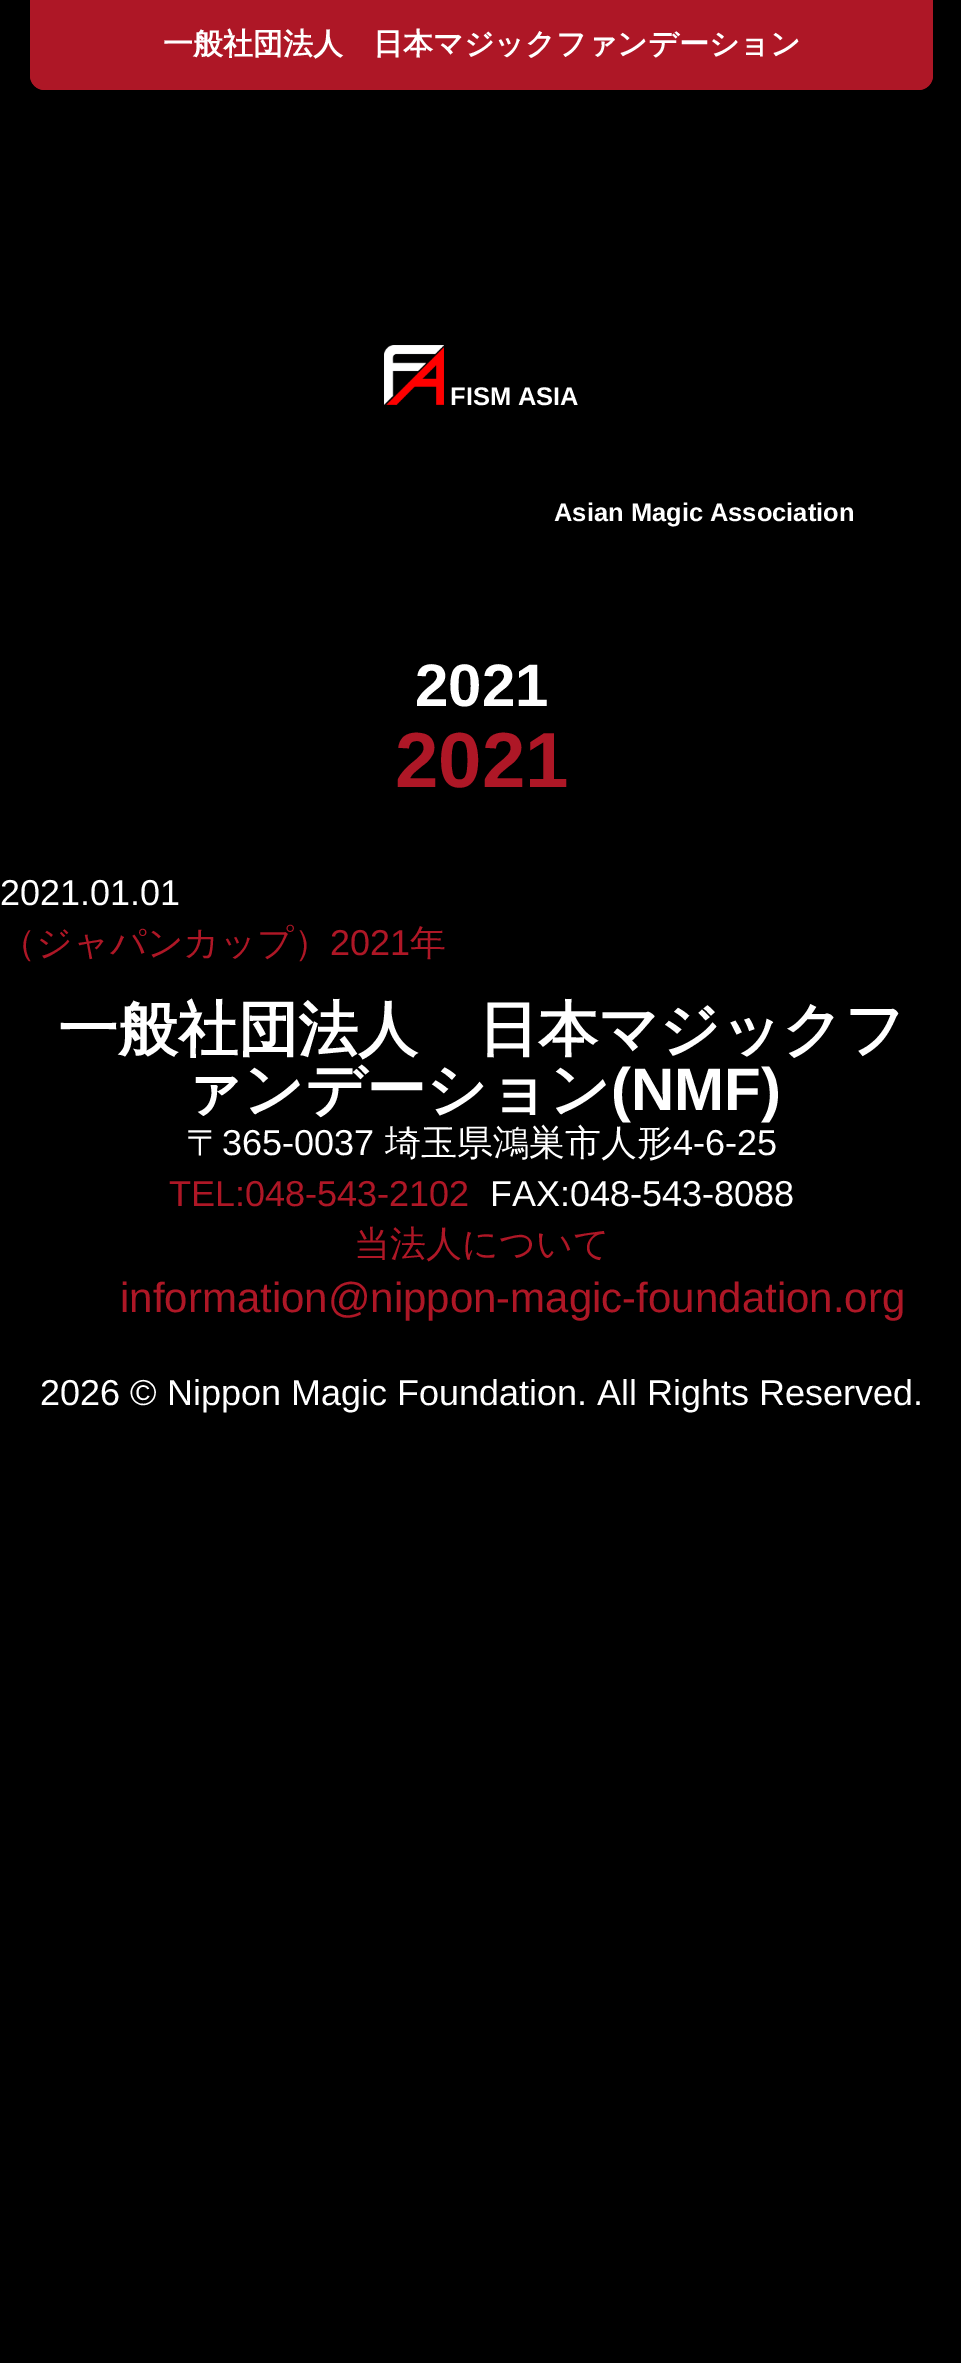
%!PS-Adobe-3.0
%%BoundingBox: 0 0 961 2363
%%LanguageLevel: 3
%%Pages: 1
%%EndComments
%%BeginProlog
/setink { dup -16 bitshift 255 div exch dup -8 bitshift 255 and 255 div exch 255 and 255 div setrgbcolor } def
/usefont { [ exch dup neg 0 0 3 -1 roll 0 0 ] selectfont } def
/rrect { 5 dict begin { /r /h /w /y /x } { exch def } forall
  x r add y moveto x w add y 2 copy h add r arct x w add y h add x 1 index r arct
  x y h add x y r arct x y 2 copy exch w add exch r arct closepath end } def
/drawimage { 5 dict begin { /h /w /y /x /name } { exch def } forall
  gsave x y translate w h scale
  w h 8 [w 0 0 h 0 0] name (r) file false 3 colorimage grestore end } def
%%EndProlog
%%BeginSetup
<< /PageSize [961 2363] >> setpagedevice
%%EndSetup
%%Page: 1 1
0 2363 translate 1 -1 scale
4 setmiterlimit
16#000000 setink
0 0 961 2363 rectfill
16#AE1726 setink
30 0 moveto 933 0 lineto 933 75 lineto 933 83.5 926.5 90 918 90 curveto 45 90 lineto 36.5 90 30 83.5 30 75 curveto closepath fill
30 0 903 90 15 rrect fill
/WenQuanYiZenHei-Bold 30 usefont
16#FFFFFF setink
163 54 moveto (一般社団法人　日本マジックファンデーション) show
(img1.raw) 384 345 60 60 drawimage
/LiberationSans-Bold 25.5 usefont
450 405 moveto (FISM ASIA) show
554 521 moveto (Asian Magic Association) show
/LiberationSans-Bold 60 usefont
415 706 moveto (2021) show
/LiberationSans-Bold 78 usefont
16#AE1726 setink
395 787 moveto (2021) show
/LiberationSans-Regular 36 usefont
16#FFFFFF setink
0 905 moveto (2021.01.01) show
/WenQuanYiZenHei-Medium 36 usefont
16#AE1726 setink
0 955 moveto (（ジャパンカップ）) show
/LiberationSans-Regular 36 usefont
330 955 moveto (2021) show
/WenQuanYiZenHei-Medium 36 usefont
410 955 moveto (年) show
/WenQuanYiZenHei-Bold 60 usefont
16#FFFFFF setink
58 1050 moveto (一般社団法人　日本マジックフ) show
182 1110 moveto (ァンデーション) show
/LiberationSans-Bold 60 usefont
611 1110 moveto (\(NMF\)) show
/WenQuanYiZenHei-Medium 36 usefont
186 1155 moveto (〒) show
/LiberationSans-Regular 36 usefont
222 1155 moveto (365-0037) show
/WenQuanYiZenHei-Medium 36 usefont
385 1155 moveto (埼玉県鴻巣市人形) show
/LiberationSans-Regular 36 usefont
673 1155 moveto (4-6-25) show
16#AE1726 setink
169 1206 moveto (TEL:048-543-2102) show
16#FFFFFF setink
490 1206 moveto (FAX:048-543-8088) show
/WenQuanYiZenHei-Medium 36 usefont
16#AE1726 setink
354 1256 moveto (当法人について) show
/LiberationSans-Regular 42 usefont
120 1312 moveto (information@nippon-magic-foundation.org) show
/LiberationSans-Regular 36 usefont
16#FFFFFF setink
40 1405 moveto (2026 © Nippon Magic Foundation. All Rights Reserved.) show
showpage
%%EOF
